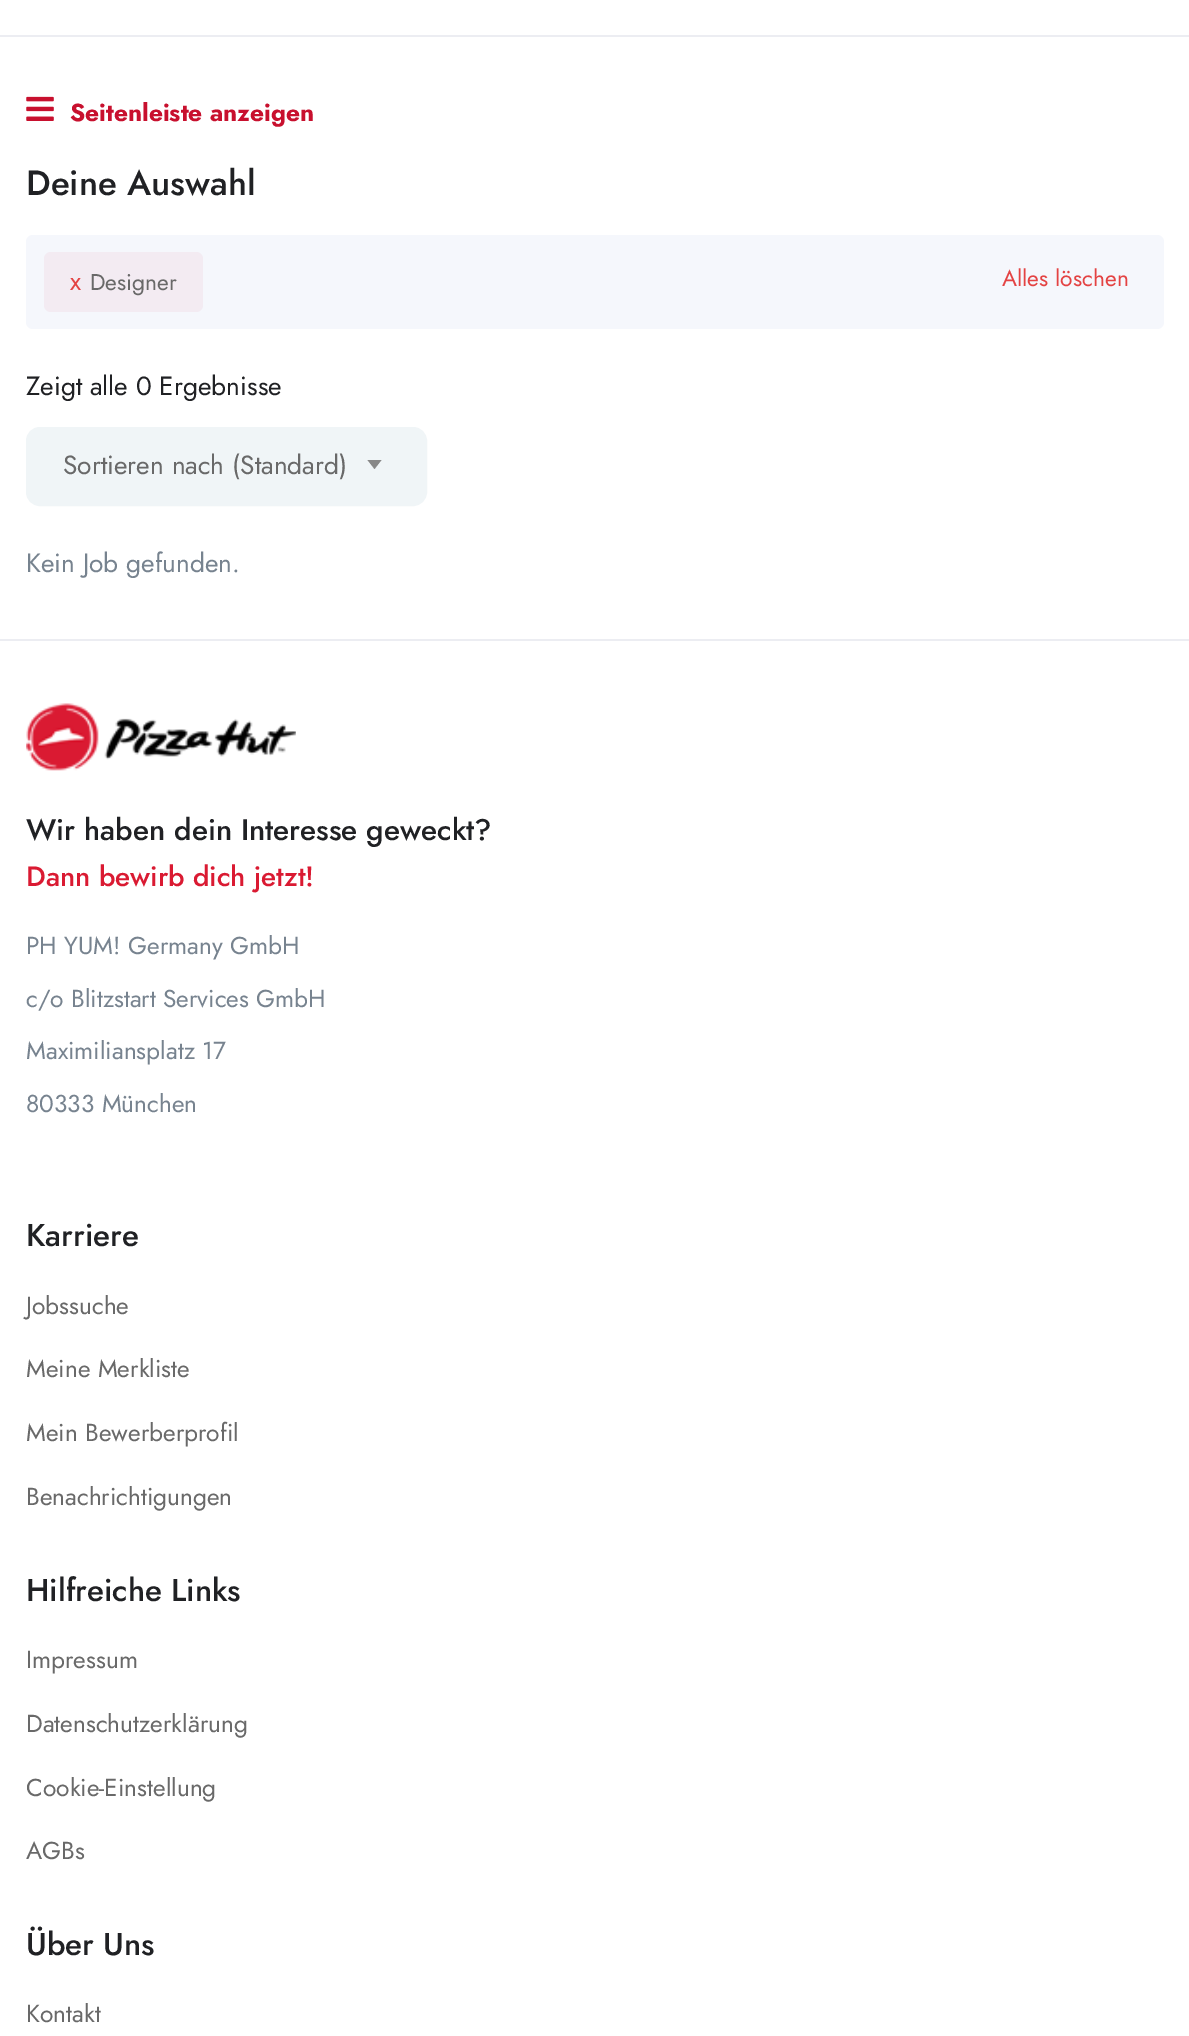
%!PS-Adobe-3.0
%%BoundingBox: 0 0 1189 2036
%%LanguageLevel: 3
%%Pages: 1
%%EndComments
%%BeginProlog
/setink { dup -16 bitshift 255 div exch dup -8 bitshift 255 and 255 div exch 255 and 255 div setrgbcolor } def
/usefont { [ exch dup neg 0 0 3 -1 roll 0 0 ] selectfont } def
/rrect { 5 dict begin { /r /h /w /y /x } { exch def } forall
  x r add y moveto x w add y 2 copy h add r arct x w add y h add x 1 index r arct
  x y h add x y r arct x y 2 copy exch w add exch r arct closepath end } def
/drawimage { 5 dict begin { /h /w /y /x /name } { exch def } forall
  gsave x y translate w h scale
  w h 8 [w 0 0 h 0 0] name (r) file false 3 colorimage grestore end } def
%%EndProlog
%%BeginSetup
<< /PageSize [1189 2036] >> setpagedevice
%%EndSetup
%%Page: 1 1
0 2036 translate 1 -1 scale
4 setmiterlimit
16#FFFFFF setink
0 0 1189 2036 rectfill
16#ECEDF2 setink
0 35 1189 2 rectfill
(img1.raw) 26 96 28 25 drawimage
/Jost-Bold 24.5 usefont
16#C8102E setink
70 121 moveto (Seitenleiste anzeigen) show
/Jost-Medium 35 usefont
16#202124 setink
26 195 moveto (Deine Auswahl) show
16#F5F7FC setink
26 235 1138 94 7 rrect fill
16#F3EBF2 setink
44 252 159 60 7 rrect fill
/Jost-Regular 26.25 usefont
16#E44343 setink
70 290 moveto (x) show
/Jost-Regular 22.75 usefont
16#696969 setink
90 290 moveto (Designer) show
16#E44343 setink
1002 286 moveto (Alles löschen) show
/Jost-Regular 26.25 usefont
16#202124 setink
26 395 moveto (Zeigt alle 0 Ergebnisse) show
16#F0F5F7 setink
27 428 399 77 13 rrect gsave fill grestore
2 setlinewidth
stroke
16#696969 setink
63 474 moveto (Sortieren nach \(Standard\)) show
16#888888 setink
367.5 460 moveto 381.5 460 lineto 374.5 469 lineto closepath fill
16#77838F setink
26 572 moveto (Kein Job gefunden.) show
16#ECEDF2 setink
0 639 1189 2 rectfill
(img2.raw) 26 703 270 68 drawimage
/Jost-Medium 29.75 usefont
16#202124 setink
26 840 moveto (Wir haben dein Interesse geweckt?) show
/Jost-Medium 28 usefont
16#DA1A32 setink
26 886 moveto (Dann bewirb dich jetzt!) show
/Jost-Regular 24.5 usefont
16#77838F setink
[
    [(PH YUM! Germany GmbH) 26 954]
    [(c/o Blitzstart Services GmbH) 26 1007]
    [(Maximiliansplatz 17) 26 1059]
    [(80333 München) 26 1112]
] { aload pop moveto show } forall
/Jost-Medium 31.5 usefont
16#202124 setink
26 1246 moveto (Karriere) show
/Jost-Regular 24.5 usefont
16#696969 setink
[
    [(Jobssuche) 26 1314]
    [(Meine Merkliste) 26 1377]
    [(Mein Bewerberprofil) 26 1441]
    [(Benachrichtigungen) 26 1505]
] { aload pop moveto show } forall
/Jost-Medium 31.5 usefont
16#202124 setink
26 1601 moveto (Hilfreiche Links) show
/Jost-Regular 24.5 usefont
16#696969 setink
[
    [(Impressum) 26 1668]
    [(Datenschutzerklärung) 26 1732]
    [(Cookie-Einstellung) 26 1796]
    [(AGBs) 26 1859]
] { aload pop moveto show } forall
/Jost-Medium 31.5 usefont
16#202124 setink
26 1955 moveto (Über Uns) show
/Jost-Regular 24.5 usefont
16#696969 setink
26 2022 moveto (Kontakt) show
showpage
%%EOF
